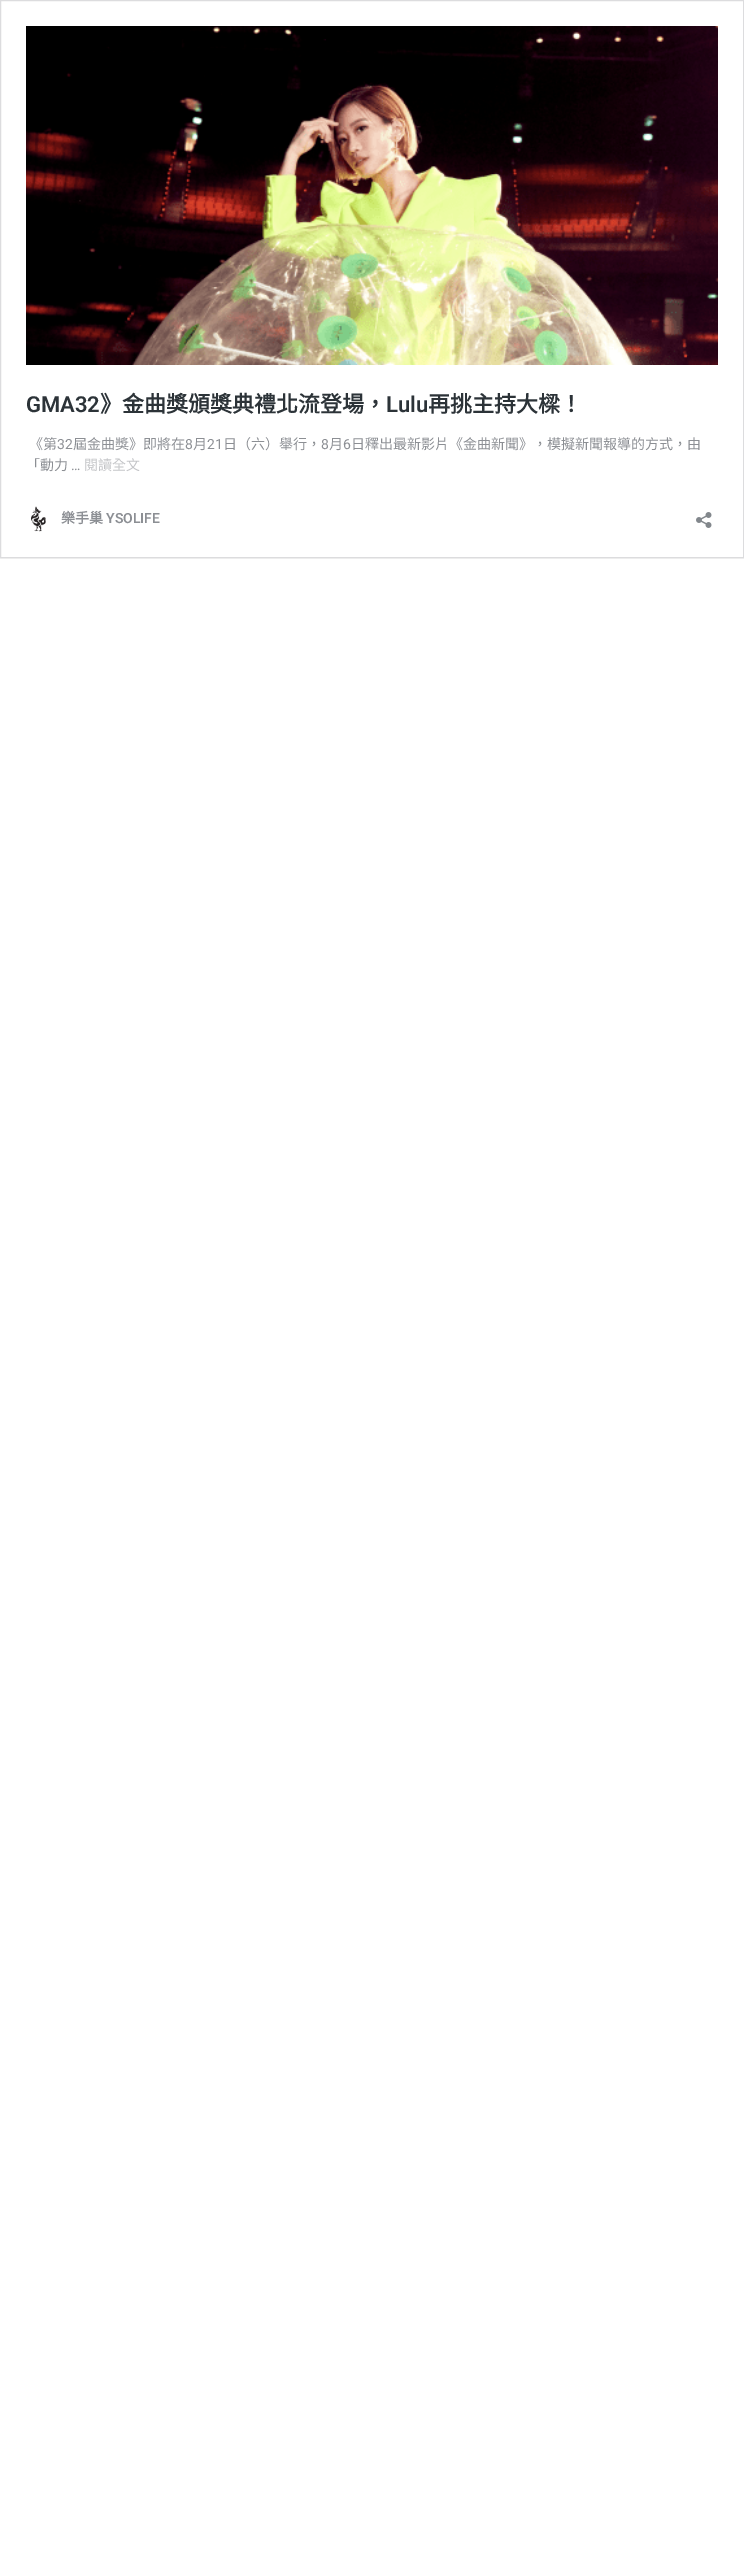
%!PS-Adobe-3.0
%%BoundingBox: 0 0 744 2575
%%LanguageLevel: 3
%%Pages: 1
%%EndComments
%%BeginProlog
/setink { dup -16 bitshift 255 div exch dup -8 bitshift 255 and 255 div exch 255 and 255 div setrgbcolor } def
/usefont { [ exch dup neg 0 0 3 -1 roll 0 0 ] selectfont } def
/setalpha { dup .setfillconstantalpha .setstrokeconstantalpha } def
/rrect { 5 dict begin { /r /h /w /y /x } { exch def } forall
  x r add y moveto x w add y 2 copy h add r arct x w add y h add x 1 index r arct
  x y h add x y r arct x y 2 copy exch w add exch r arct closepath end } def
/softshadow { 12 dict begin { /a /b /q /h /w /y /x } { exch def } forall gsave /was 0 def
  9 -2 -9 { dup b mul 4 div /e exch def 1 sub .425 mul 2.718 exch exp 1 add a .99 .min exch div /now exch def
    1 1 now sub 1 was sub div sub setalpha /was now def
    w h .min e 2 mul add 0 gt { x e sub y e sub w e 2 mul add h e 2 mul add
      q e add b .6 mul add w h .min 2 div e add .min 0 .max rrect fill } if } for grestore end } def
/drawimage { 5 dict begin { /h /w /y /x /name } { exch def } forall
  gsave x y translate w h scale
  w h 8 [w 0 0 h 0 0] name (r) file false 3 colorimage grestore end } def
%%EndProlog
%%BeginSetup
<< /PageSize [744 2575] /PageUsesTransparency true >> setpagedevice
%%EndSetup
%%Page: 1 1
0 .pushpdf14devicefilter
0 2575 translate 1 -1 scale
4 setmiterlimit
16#FFFFFF setink
0 0 744 2575 rectfill
gsave
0 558 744 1 rectclip
16#000000 setink
0 1 744 558 0 0.5 0.05 softshadow
grestore
16#DCDCDE setink
0.5 0.5 743 557 rectstroke
(img1.raw) 26 26 692 339 drawimage
/Roboto-SemiBold 22 usefont
16#2C3338 setink
26 412 moveto (GMA32) show
/NotoSansCJKTC-Bold 22 usefont
100 412 moveto (》金曲獎頒獎典禮北流登場，) show
/Roboto-SemiBold 22 usefont
386 412 moveto (Lulu) show
/NotoSansCJKTC-Bold 22 usefont
428 412 moveto (再挑主持大樑！) show
/NotoSansCJKTC-Regular 14 usefont
16#8C8F94 setink
29 449 moveto (《第) show
/Roboto-Regular 14 usefont
57 449 moveto (32) show
/NotoSansCJKTC-Regular 14 usefont
73 449 moveto (屆金曲獎》即將在) show
/Roboto-Regular 14 usefont
185 449 moveto (8) show
/NotoSansCJKTC-Regular 14 usefont
193 449 moveto (月) show
/Roboto-Regular 14 usefont
207 449 moveto (21) show
/NotoSansCJKTC-Regular 14 usefont
223 449 moveto (日（六）舉行，) show
/Roboto-Regular 14 usefont
321 449 moveto (8) show
/NotoSansCJKTC-Regular 14 usefont
329 449 moveto (月) show
/Roboto-Regular 14 usefont
343 449 moveto (6) show
/NotoSansCJKTC-Regular 14 usefont
351 449 moveto (日釋出最新影片《金曲新聞》，模擬新聞報導的方式，由) show
26 470 moveto (「動力) show
/Roboto-Regular 14 usefont
71 470 moveto (…) show
/NotoSansCJKTC-Regular 14 usefont
16#C3C4C7 setink
84 470 moveto (閱讀全文) show
(img2.raw) 31 506 15 26 drawimage
/NotoSansCJKTC-Bold 14 usefont
16#8C8F94 setink
61 523 moveto (樂手巢) show
/Roboto-SemiBold 14 usefont
106 523 moveto (YSOLIFE) show
(img3.raw) 696 512 16 16 drawimage
.poppdf14devicefilter showpage
%%EOF
